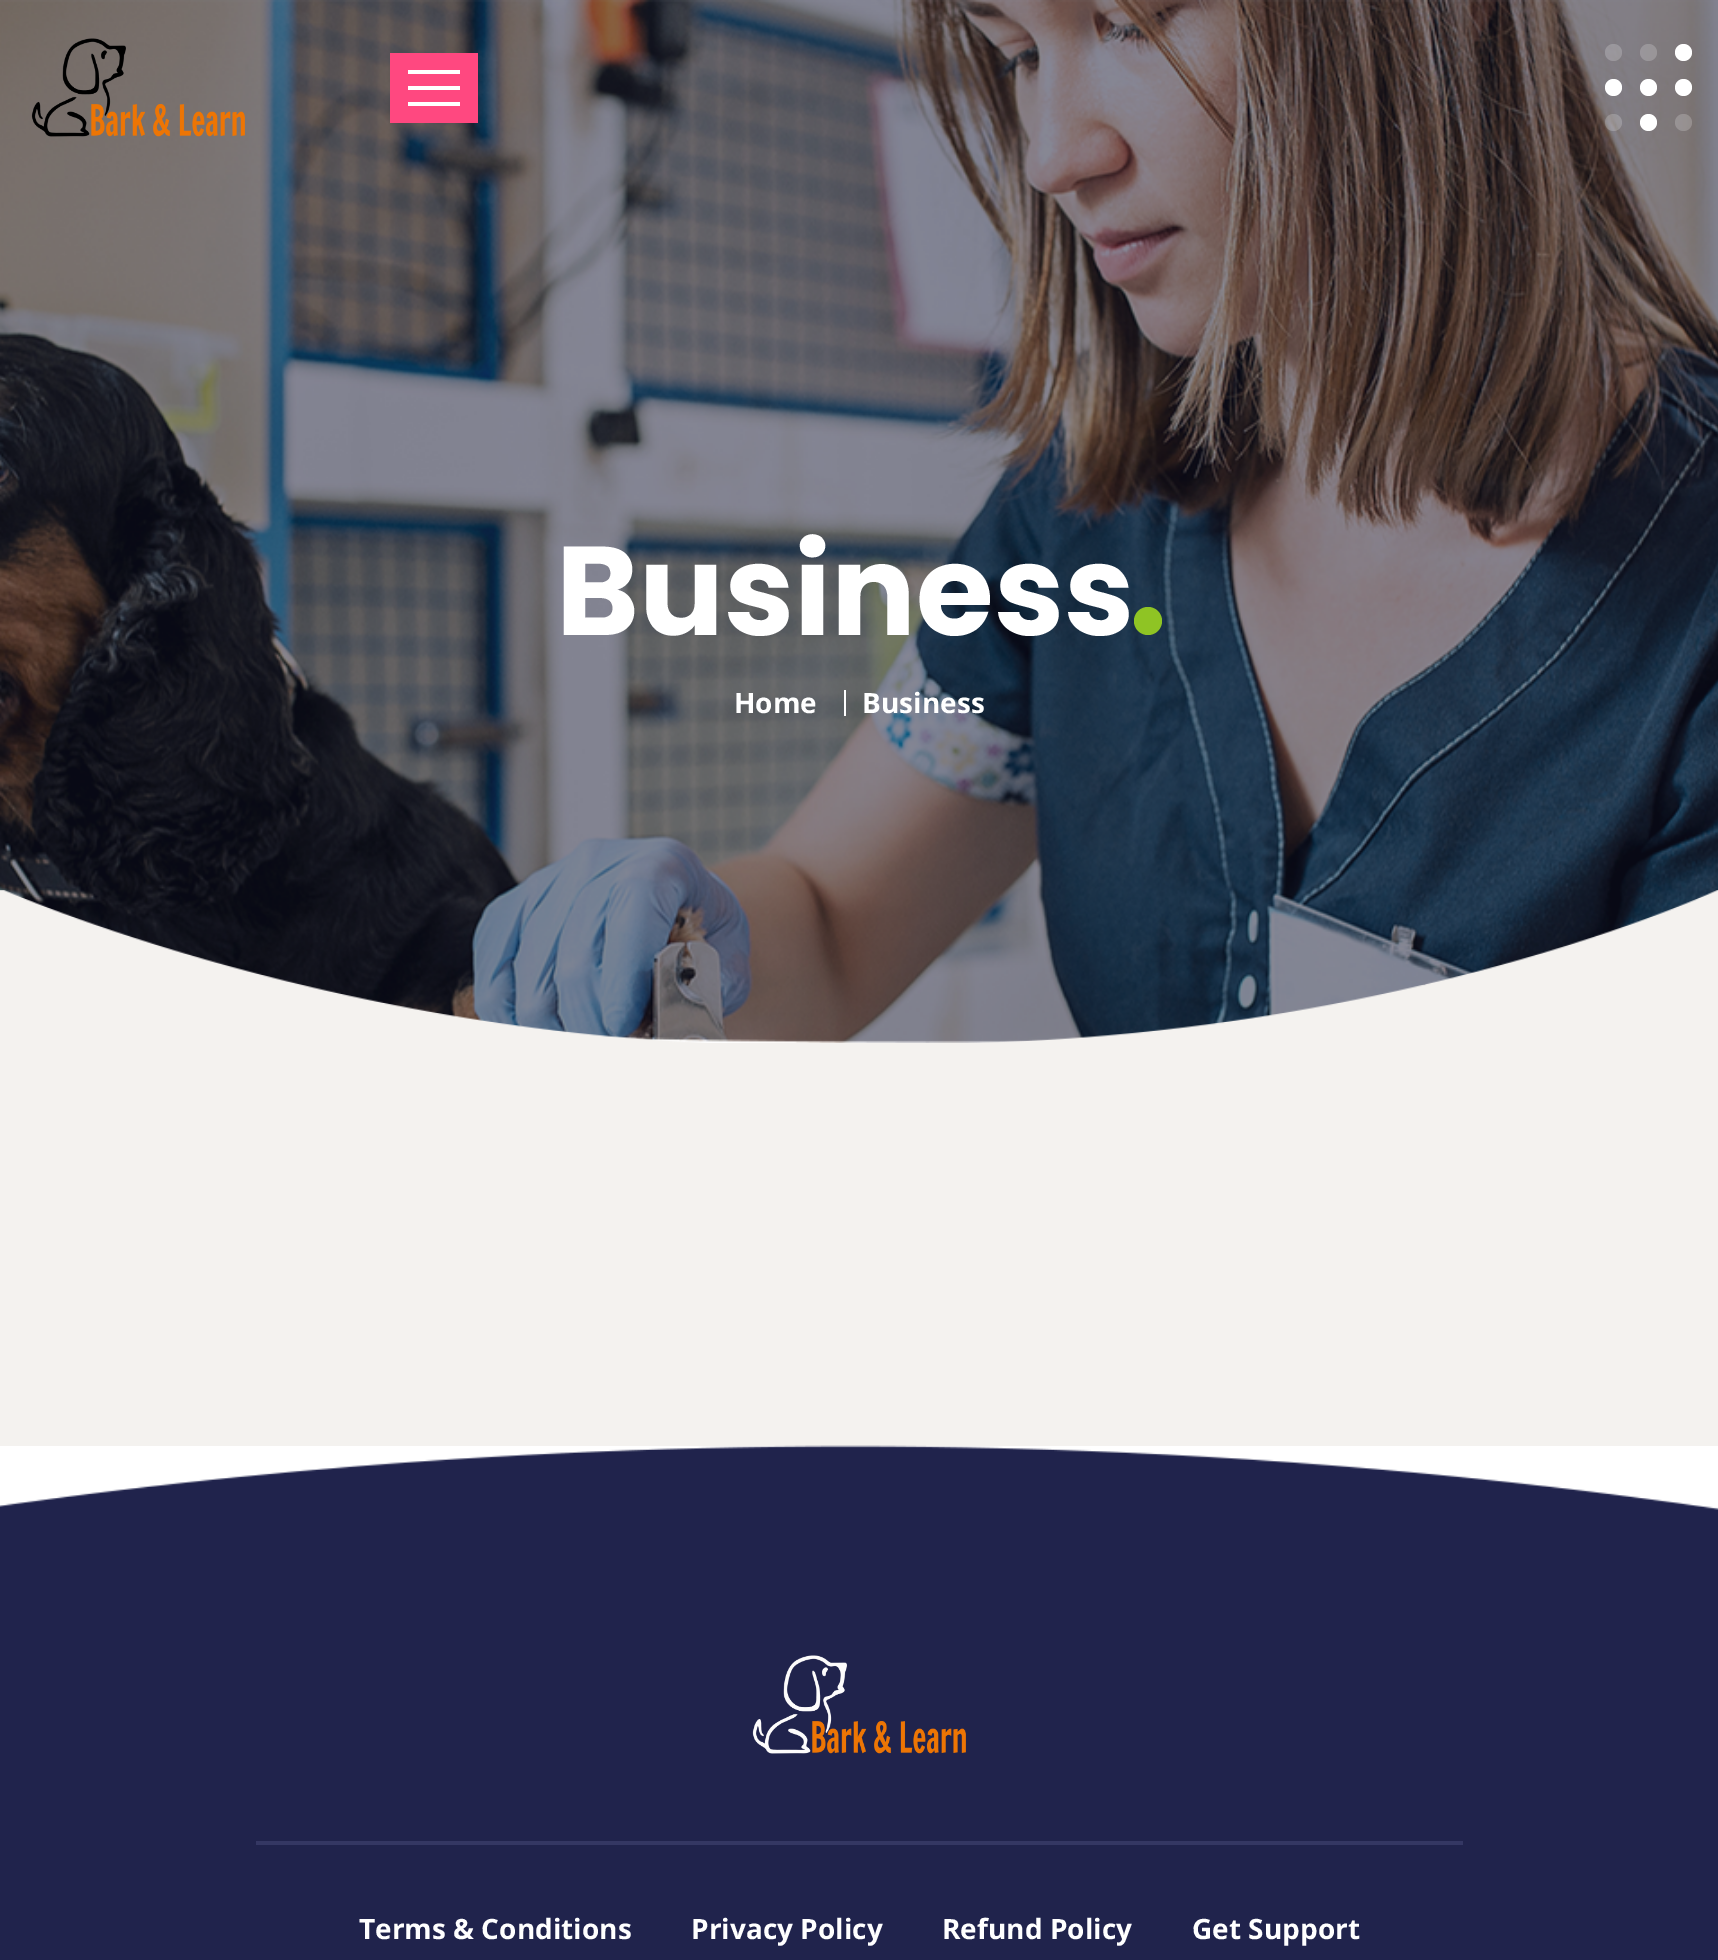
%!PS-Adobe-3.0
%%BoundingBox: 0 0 1718 1960
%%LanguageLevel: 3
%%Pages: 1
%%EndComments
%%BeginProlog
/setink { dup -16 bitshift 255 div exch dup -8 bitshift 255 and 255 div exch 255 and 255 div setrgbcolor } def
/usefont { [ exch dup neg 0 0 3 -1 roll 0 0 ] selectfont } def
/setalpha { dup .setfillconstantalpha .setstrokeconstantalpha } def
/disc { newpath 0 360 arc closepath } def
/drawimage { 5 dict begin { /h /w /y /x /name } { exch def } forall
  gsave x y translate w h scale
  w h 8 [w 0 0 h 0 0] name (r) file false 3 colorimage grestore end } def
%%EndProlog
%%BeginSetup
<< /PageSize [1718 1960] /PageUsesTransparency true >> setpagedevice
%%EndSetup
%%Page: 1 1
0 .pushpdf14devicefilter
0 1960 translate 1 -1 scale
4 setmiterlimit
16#FFFFFF setink
0 0 1718 1960 rectfill
(img2.raw) 0 0 1718 1043 drawimage
(img1.raw) 31 38 214 99 drawimage
[
    [390 53 88 70 16#FF4880]
    [408 70 52 4 16#FFFFFF]
    [408 86 52 4 16#FFFFFF]
    [408 102 52 4 16#FFFFFF]
] { aload pop setink rectfill } forall
0.2 setalpha
1613.5 52.5 8.5 disc fill
1648.5 52.5 8.5 disc fill
1 setalpha
1683.5 52.5 8.5 disc fill
1613.5 87.5 8.5 disc fill
1648.5 87.5 8.5 disc fill
1683.5 87.5 8.5 disc fill
0.2 setalpha
1613.5 122.5 8.5 disc fill
1 setalpha
1648.5 122.5 8.5 disc fill
0.2 setalpha
1683.5 122.5 8.5 disc fill
/Poppins-Bold 126 usefont
1 setalpha
556 635 moveto (Business) show
16#8FC424 setink
1148 621 14 disc fill
/OpenSans-Bold 28 usefont
16#FFFFFF setink
734 713 moveto (Home) show
844 690 2 26 rectfill
862 713 moveto (Business) show
(img3.raw) 0 890 1718 153 drawimage
16#F4F2EF setink
0 1043 1718 403 rectfill
(img4.raw) 0 1445 1718 515 drawimage
(img5.raw) 752 1655 214 99 drawimage
16#343763 setink
256 1841 1207 4 rectfill
16#FFFFFF setink
[
    [(Terms & Conditions) 359 1939]
    [(Privacy Policy) 691 1939]
    [(Refund Policy) 942 1939]
    [(Get Support) 1192 1939]
] { aload pop moveto show } forall
.poppdf14devicefilter showpage
%%EOF
